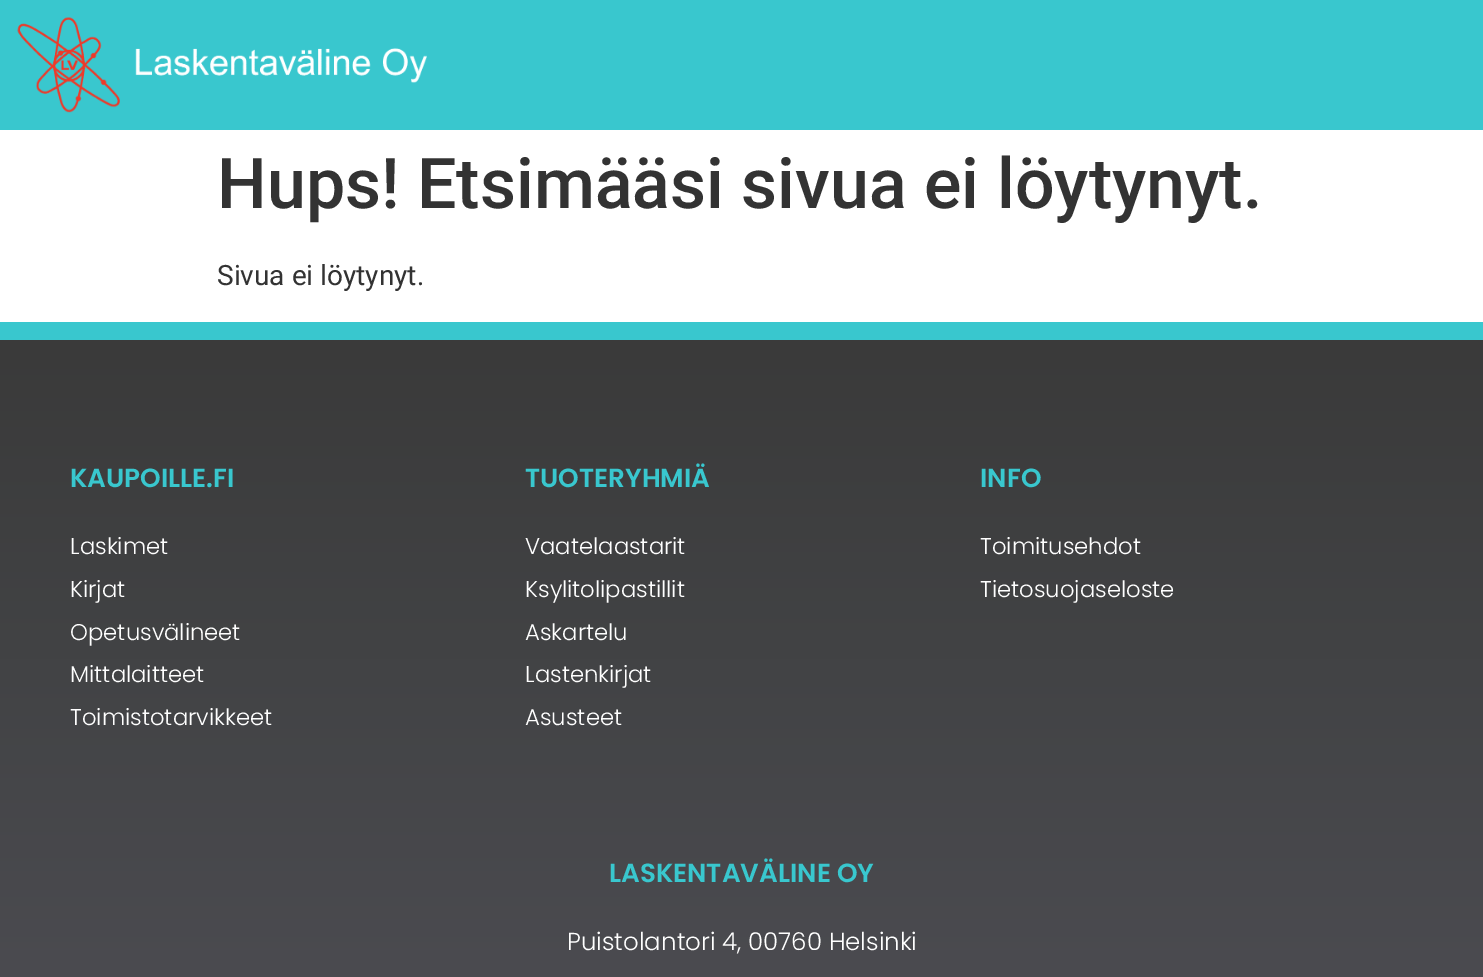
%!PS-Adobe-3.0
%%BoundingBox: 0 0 1483 977
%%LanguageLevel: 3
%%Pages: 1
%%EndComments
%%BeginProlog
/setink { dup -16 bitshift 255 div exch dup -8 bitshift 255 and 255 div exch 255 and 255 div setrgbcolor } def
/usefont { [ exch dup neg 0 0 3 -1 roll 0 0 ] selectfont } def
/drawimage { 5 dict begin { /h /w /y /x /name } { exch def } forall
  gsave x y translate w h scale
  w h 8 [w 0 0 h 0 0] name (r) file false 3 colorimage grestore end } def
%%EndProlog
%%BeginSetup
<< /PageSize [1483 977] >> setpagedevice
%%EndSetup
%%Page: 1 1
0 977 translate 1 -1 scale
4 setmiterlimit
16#FFFFFF setink
0 0 1483 977 rectfill
16#39C7CE setink
0 0 1483 130 rectfill
(img1.raw) 17 17 410 96 drawimage
/Roboto-Medium 70 usefont
16#333333 setink
217 208 moveto (Hups! Etsimääsi sivua ei löytynyt.) show
/Roboto-Regular 28 usefont
217 285 moveto (Sivua ei löytynyt.) show
gsave 0 340 moveto 1483 340 lineto 1483 977 lineto 0 977 lineto closepath clip newpath
<< /ShadingType 2 /ColorSpace /DeviceRGB /Coords [742 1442 742 339] /Extend [true true] /Function << /FunctionType 2 /Domain [0 1] /C0 [0.341 0.345 0.376] /C1 [0.227 0.227 0.227] /N 1 >> >> shfill grestore
16#39C7CE setink
0 322 1483 18 rectfill
/Poppins-SemiBold 26.25 usefont
70 487 moveto (KAUPOILLE.FI) show
/Poppins-Light 22.75 usefont
16#FFFFFF setink
[
    [(Laskimet) 70 554]
    [(Kirjat) 70 597]
    [(Opetusvälineet) 70 640]
    [(Mittalaitteet) 70 682]
    [(Toimistotarvikkeet) 70 725]
] { aload pop moveto show } forall
/Poppins-SemiBold 26.25 usefont
16#39C7CE setink
525 487 moveto (TUOTERYHMIÄ) show
/Poppins-Light 22.75 usefont
16#FFFFFF setink
[
    [(Vaatelaastarit) 525 554]
    [(Ksylitolipastillit) 525 597]
    [(Askartelu) 525 640]
    [(Lastenkirjat) 525 682]
    [(Asusteet) 525 725]
] { aload pop moveto show } forall
/Poppins-SemiBold 26.25 usefont
16#39C7CE setink
980 487 moveto (INFO) show
/Poppins-Light 22.75 usefont
16#FFFFFF setink
980 554 moveto (Toimitusehdot) show
980 597 moveto (Tietosuojaseloste) show
/Poppins-SemiBold 26.25 usefont
16#39C7CE setink
609 882 moveto (LASKENTAVÄLINE OY) show
/Poppins-Light 24.5 usefont
16#FFFFFF setink
567 950 moveto (Puistolantori 4, 00760 Helsinki) show
showpage
%%EOF
